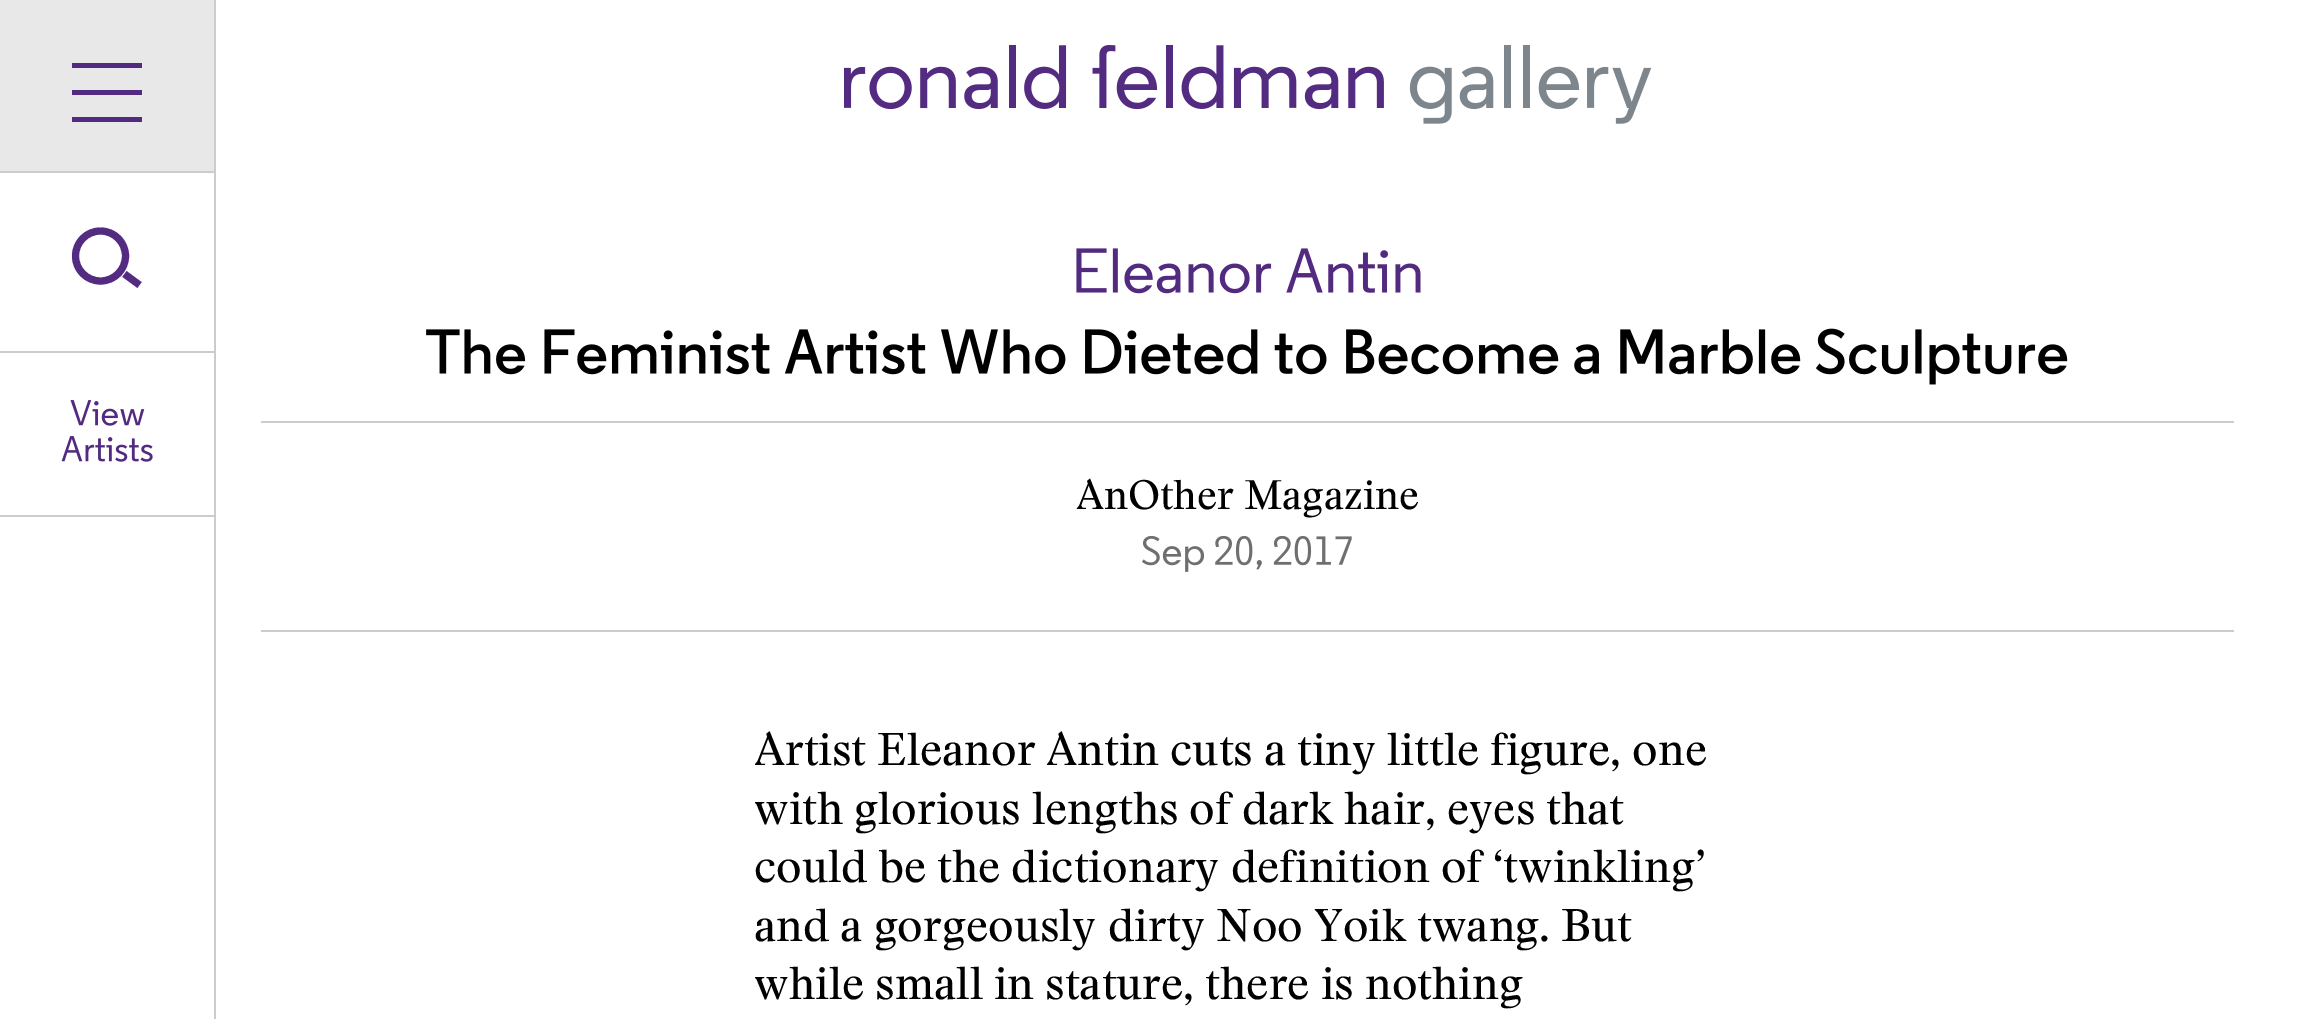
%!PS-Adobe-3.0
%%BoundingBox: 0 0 2323 1019
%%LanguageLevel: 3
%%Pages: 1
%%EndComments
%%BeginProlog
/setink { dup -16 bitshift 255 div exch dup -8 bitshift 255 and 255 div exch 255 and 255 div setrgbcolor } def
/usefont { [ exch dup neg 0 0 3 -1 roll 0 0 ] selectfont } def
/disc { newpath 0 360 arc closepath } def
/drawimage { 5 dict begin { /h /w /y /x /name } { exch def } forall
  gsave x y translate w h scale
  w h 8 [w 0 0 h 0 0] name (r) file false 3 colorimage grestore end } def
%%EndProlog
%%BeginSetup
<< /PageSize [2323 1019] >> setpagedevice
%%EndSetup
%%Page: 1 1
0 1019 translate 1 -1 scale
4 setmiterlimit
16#FFFFFF setink
0 0 2323 1019 rectfill
[
    [214 0 2 1019 16#CCCCCC]
    [0 0 214 171 16#E8E8E8]
    [0 171 214 2 16#CCCCCC]
    [72 63 70 5 16#522B80]
    [72 90 70 5 16#522B80]
    [72 117 70 5 16#522B80]
    [0 351 214 2 16#CCCCCC]
] { aload pop setink rectfill } forall
16#532C82 setink
7.1 setlinewidth
100.5 256 25 disc stroke
124.5 274 moveto 139.5 285 lineto stroke
16#CCCCCC setink
0 515 214 2 rectfill
(img1.raw) 70 400 75 26 drawimage
(img2.raw) 61 436 92 26 drawimage
(img3.raw) 844 45 808 79 drawimage
261 421 1973 2 rectfill
(img4.raw) 1076 248 345 46 drawimage
(img5.raw) 426 328 1642 57 drawimage
/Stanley-Regular 40.5 usefont
16#000000 setink
1076 509 moveto (AnOther Magazine) show
(img6.raw) 1142 535 210 37 drawimage
16#CCCCCC setink
261 630 1973 2 rectfill
/Stanley-Regular 45 usefont
16#000000 setink
[
    [(Artist Eleanor Antin cuts a tiny little figure, one) 754 765]
    [(with glorious lengths of dark hair, eyes that) 754 824]
    [(could be the dictionary definition of ‘twinkling’) 754 882]
    [(and a gorgeously dirty Noo Yoik twang. But) 754 941]
    [(while small in stature, there is nothing) 754 999]
] { aload pop moveto show } forall
showpage
%%EOF
